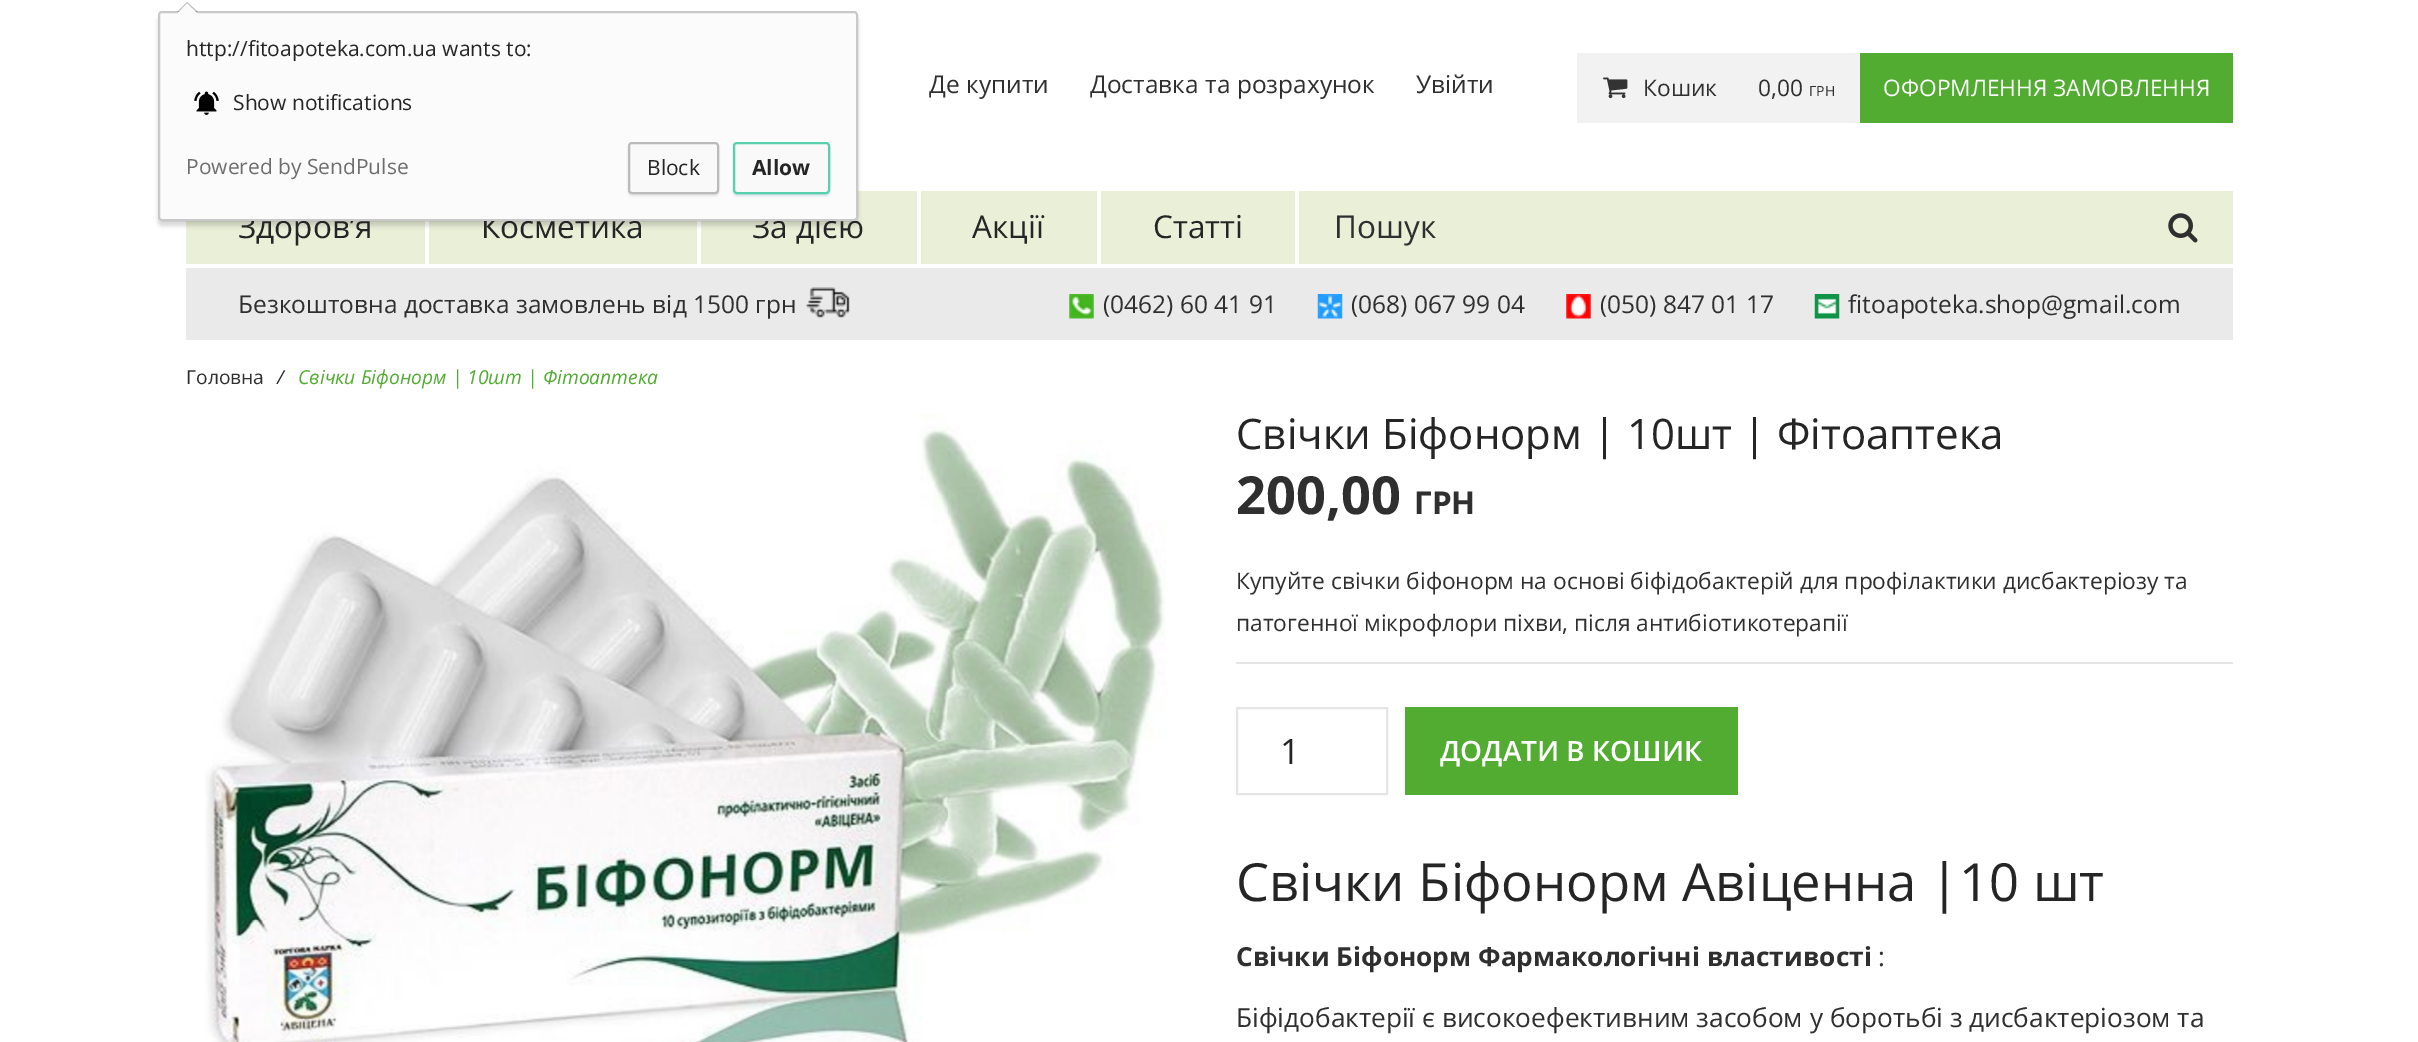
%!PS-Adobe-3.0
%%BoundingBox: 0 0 2418 1042
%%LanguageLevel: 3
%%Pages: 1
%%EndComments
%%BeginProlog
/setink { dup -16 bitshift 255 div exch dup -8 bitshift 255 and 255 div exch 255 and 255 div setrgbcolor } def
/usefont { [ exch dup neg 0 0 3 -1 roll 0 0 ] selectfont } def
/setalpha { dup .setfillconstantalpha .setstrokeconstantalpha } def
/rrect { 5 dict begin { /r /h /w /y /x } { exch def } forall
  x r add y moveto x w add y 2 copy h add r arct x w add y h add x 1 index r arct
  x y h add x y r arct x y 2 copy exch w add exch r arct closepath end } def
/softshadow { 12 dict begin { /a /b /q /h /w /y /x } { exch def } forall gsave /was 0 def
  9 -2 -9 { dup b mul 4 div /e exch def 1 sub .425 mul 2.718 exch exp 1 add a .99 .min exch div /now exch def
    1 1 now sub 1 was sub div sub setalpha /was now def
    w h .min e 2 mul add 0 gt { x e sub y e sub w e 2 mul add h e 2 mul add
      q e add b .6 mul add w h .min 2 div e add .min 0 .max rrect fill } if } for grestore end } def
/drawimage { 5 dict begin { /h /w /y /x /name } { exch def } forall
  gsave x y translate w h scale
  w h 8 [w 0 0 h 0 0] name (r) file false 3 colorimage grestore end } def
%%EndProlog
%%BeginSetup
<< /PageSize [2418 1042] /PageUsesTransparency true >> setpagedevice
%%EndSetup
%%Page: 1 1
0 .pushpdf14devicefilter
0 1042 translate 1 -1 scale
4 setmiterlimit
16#FFFFFF setink
0 0 2418 1042 rectfill
[
    [186 191 2047 73 16#EAEFD8]
    [425 221 4 43 16#FFFFFF]
    [697 221 4 43 16#FFFFFF]
] { aload pop setink rectfill } forall
16#000000 setink
158 16 700 210 4 2 0.15 softshadow
/OpenSans-Regular 31.5 usefont
16#252525 setink
[
    [(Здоров’я) 238 238]
    [(Косметика) 481 238]
    [(За дією) 752 238]
] { aload pop moveto show } forall
16#FBFBFB setink
158 11 700 210 4 rrect fill
0.2 setalpha
16#000000 setink
2 setlinewidth
159 12 698 208 3 rrect stroke
0.25 setalpha
198 12 moveto 177 12 lineto 187 2 lineto closepath fill
1 setalpha
16#FBFBFB setink
198 14 moveto 177 14 lineto 187 3.5 lineto closepath fill
/OpenSans-Regular 21 usefont
16#252525 setink
186 56 moveto (http://fitoapoteka.com.ua wants to:) show
(img1.raw) 194 91 25 24 drawimage
233 110 moveto (Show notifications) show
16#6E6E6E setink
186 174 moveto (Powered by SendPulse) show
16#000000 setink
628 144 91 52 4 1 0.1 softshadow
16#F9F9F9 setink
629 143 89 50 3 rrect gsave fill grestore
16#BABABA setink
stroke
16#252525 setink
647 175 moveto (Block) show
16#265D86 setink
733 144 97 52 4 1 0.18 softshadow
16#F9F9F9 setink
734 143 95 50 3 rrect gsave fill grestore
16#57D1AD setink
stroke
/OpenSans-Bold 21 usefont
16#252525 setink
752 175 moveto (Allow) show
/OpenSans-Regular 24.5 usefont
16#2F2F2F setink
[
    [(Де купити) 929 93]
    [(Доставка та розрахунок) 1090 93]
    [(Увійти) 1416 93]
] { aload pop moveto show } forall
16#F2F2F2 setink
1577 53 283 70 rectfill
(img2.raw) 1603 77 25 22 drawimage
/OpenSans-Regular 22.75 usefont
16#2F2F2F setink
1643 96 moveto (Кошик) show
1758 96 moveto (0,00) show
/OpenSans-Regular 14 usefont
1809 96 moveto (ГРН) show
16#51AC31 setink
1860 53 373 70 rectfill
/OpenSans-Regular 22.75 usefont
16#FFFFFF setink
1883 96 moveto (ОФОРМЛЕННЯ ЗАМОВЛЕННЯ) show
917 191 4 73 rectfill
1097 191 4 73 rectfill
/OpenSans-Regular 31.5 usefont
16#252525 setink
972 238 moveto (Акції) show
16#FFFFFF setink
1295 191 4 73 rectfill
16#252525 setink
1153 238 moveto (Статті) show
16#2F2F2F setink
1334 238 moveto (Пошук) show
(img3.raw) 2168 213 30 30 drawimage
16#EAEAEA setink
186 268 2047 72 rectfill
/OpenSans-Regular 24.5 usefont
16#2F2F2F setink
238 313 moveto (Безкоштовна доставка замовлень від 1500 грн) show
(img4.raw) 806 287 44 32 drawimage
(img5.raw) 1069 294 25 25 drawimage
1103 313 moveto (\(0462\) 60 41 91) show
(img6.raw) 1317 294 26 25 drawimage
1351 313 moveto (\(068\) 067 99 04) show
(img7.raw) 1566 294 25 25 drawimage
1600 313 moveto (\(050\) 847 01 17) show
(img8.raw) 1814 294 26 25 drawimage
1848 313 moveto (fitoapoteka.shop@gmail.com) show
/OpenSans-Regular 19.25 usefont
186 384 moveto (Головна) show
/OpenSans-Italic 19.25 usefont
277 384 moveto (/) show
16#51AC31 setink
298 384 moveto (Свічки Біфонорм | 10шт | Фітоаптека) show
(img9.raw) 205 413 961 629 drawimage
/OpenSans-Regular 42 usefont
16#252525 setink
1236 449 moveto (Свічки Біфонорм | 10шт | Фітоаптека) show
/OpenSans-Bold 52.5 usefont
16#2F2F2F setink
1236 514 moveto (200,00) show
/OpenSans-Bold 31.5 usefont
1414 514 moveto (ГРН) show
16#E5E5E5 setink
1236 662 997 2 rectfill
/OpenSans-Regular 22.75 usefont
16#2F2F2F setink
1236 589 moveto (Купуйте свічки біфонорм на основі біфідобактерій для профілактики дисбактеріозу та) show
1236 631 moveto (патогенної мікрофлори піхви, після антибіотикотерапії) show
16#E5E5E5 setink
1237 708 150 86 rectstroke
/OpenSans-Regular 35 usefont
16#252525 setink
1280 764 moveto (1) show
16#51AC31 setink
1405 707 333 88 rectfill
/OpenSans-SemiBold 28 usefont
16#FFFFFF setink
1440 761 moveto (ДОДАТИ В КОШИК) show
/OpenSans-Regular 52.5 usefont
16#252525 setink
1236 901 moveto (Свічки Біфонорм Авіценна |10 шт) show
/OpenSans-Bold 26.25 usefont
16#2F2F2F setink
1236 966 moveto (Свічки Біфонорм Фармакологічні властивості) show
/OpenSans-Regular 26.25 usefont
1878 966 moveto (:) show
1236 1027 moveto (Біфідобактерії є високоефективним засобом у боротьбі з дисбактеріозом та) show
.poppdf14devicefilter showpage
%%EOF
